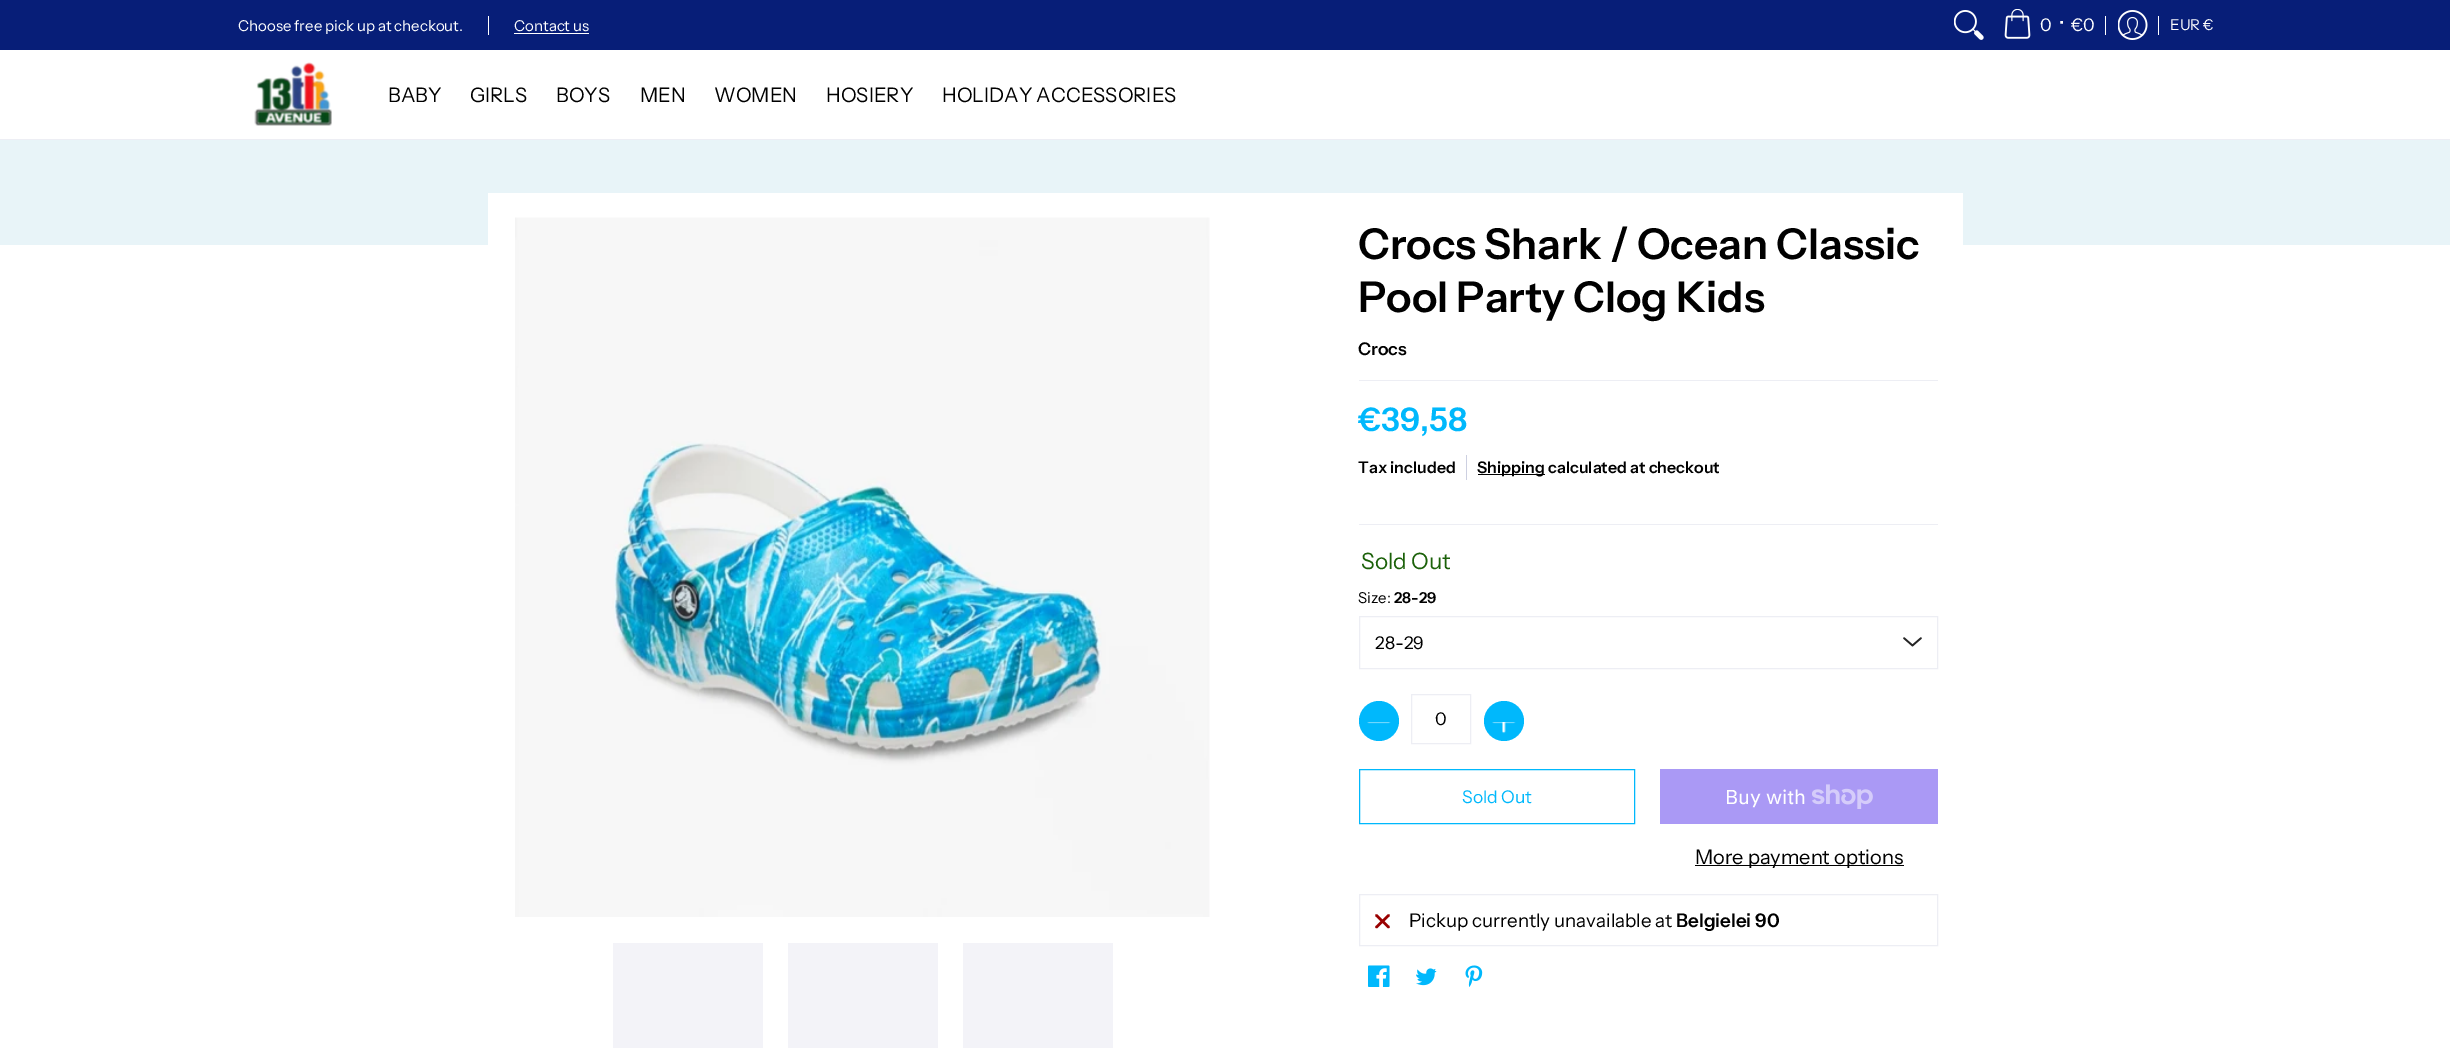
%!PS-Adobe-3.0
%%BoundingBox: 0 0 2450 1048
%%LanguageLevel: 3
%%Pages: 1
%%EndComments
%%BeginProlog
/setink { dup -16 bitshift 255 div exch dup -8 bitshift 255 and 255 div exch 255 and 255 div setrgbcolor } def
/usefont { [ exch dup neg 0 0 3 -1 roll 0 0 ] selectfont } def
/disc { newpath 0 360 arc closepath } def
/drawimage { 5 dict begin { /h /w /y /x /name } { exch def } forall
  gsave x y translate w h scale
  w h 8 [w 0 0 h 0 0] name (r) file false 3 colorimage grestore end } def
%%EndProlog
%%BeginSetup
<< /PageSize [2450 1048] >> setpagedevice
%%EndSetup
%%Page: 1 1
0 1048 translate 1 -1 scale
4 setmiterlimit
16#FFFFFF setink
0 0 2450 1048 rectfill
16#071E78 setink
0 0 2450 50 rectfill
/InstrumentSans-Regular 15 usefont
16#FFFFFF setink
238 31 moveto (Choose free pick up at checkout.) show
488 16 1 19 rectfill
514 31 moveto (Contact us) show
514 33 75 1 rectfill
(img1.raw) 1954 10 30 30 drawimage
(img2.raw) 2004 9 27 30 drawimage
/InstrumentSans-Regular 17.5 usefont
[
    [(0) 2040 31]
    [(•) 2059 29]
    [(€0) 2071 31]
] { aload pop moveto show } forall
2105 16 1 19 rectfill
(img3.raw) 2118 10 30 30 drawimage
2158 16 1 19 rectfill
/InstrumentSans-Regular 15 usefont
2170 30 moveto (EUR €) show
16#EDEEF4 setink
0 139 2450 1 rectfill
(img4.raw) 254 62 78 64 drawimage
/InstrumentSans-Regular 20 usefont
16#000000 setink
[
    [(BABY) 388 102]
    [(GIRLS) 470 102]
    [(BOYS) 556 102]
    [(MEN) 640 102]
    [(WOMEN) 714 102]
    [(HOSIERY) 826 102]
    [(HOLIDAY ACCESSORIES) 942 102]
] { aload pop moveto show } forall
16#E8F4F8 setink
0 140 2450 105 rectfill
16#FFFFFF setink
488 193 1475 52 rectfill
(img5.raw) 515 217 695 700 drawimage
[
    [613 943 150 105 16#F3F3F8]
    [788 943 150 105 16#F3F3F8]
    [963 943 150 105 16#F3F3F8]
] { aload pop setink rectfill } forall
/InstrumentSans-SemiBold 42.5 usefont
16#000000 setink
1358 259 moveto (Crocs Shark / Ocean Classic) show
1358 312 moveto (Pool Party Clog Kids) show
16#EDEEF4 setink
1359 380 579 1 rectfill
/InstrumentSans-SemiBold 17.5 usefont
16#000000 setink
1358 355 moveto (Crocs) show
16#EDEEF4 setink
1359 524 579 1 rectfill
/InstrumentSans-SemiBold 32.5 usefont
16#00B8FC setink
1358 431 moveto (€39,58) show
/InstrumentSans-SemiBold 16 usefont
16#000000 setink
1358 473 moveto (Tax included) show
16#CDD0E1 setink
1466 455 1 25 rectfill
16#000000 setink
1478 474 67 1 rectfill
1477 473 moveto (Shipping calculated at checkout) show
/InstrumentSans-Regular 22.5 usefont
16#1B6109 setink
1361 569 moveto (Sold Out) show
16#EDEEF4 setink
1359.5 616.5 578 52 rectstroke
/InstrumentSans-Regular 15 usefont
16#000000 setink
1358 603 moveto (Size:) show
/InstrumentSans-SemiBold 15 usefont
1394 603 moveto (28-29) show
/InstrumentSans-Regular 17.5 usefont
1375 649 moveto (28-29) show
(img6.raw) 1903 637 19 10 drawimage
16#00B8FC setink
1379 721 20 disc fill
(img7.raw) 1367 722 24 2 drawimage
16#EDEEF4 setink
1411.5 694.5 59 49 rectstroke
16#000000 setink
1435 725 moveto (0) show
16#00B8FC setink
1504 721 20 disc fill
(img8.raw) 1492 722 24 12 drawimage
1359.5 769.5 275 54 rectstroke
1462 803 moveto (Sold Out) show
16#AA99F5 setink
1660 769 278 55 rectfill
/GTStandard-Regular 20 usefont
16#FFFFFF setink
1725 804 moveto (Buy with) show
(img9.raw) 1812 784 61 25 drawimage
16#000000 setink
1695 865 209 1 rectfill
/InstrumentSans-Regular 20 usefont
1695 864 moveto (More payment options) show
16#EDEEF4 setink
1359.5 894.5 578 51 rectstroke
16#990000 setink
2.5 setlinewidth
1 setlinecap
1 setlinejoin
1376.5 915.5 moveto 1388.5 927 lineto 1388.5 915.5 moveto 1376.5 927 lineto stroke
/InstrumentSans-Regular 18.75 usefont
16#000000 setink
1409 927 moveto (Pickup currently unavailable at) show
/InstrumentSans-SemiBold 18.75 usefont
1676 927 moveto (Belgielei 90) show
(img10.raw) 1368 965 22 22 drawimage
(img11.raw) 1416 968 21 18 drawimage
(img12.raw) 1465 965 18 22 drawimage
showpage
%%EOF
